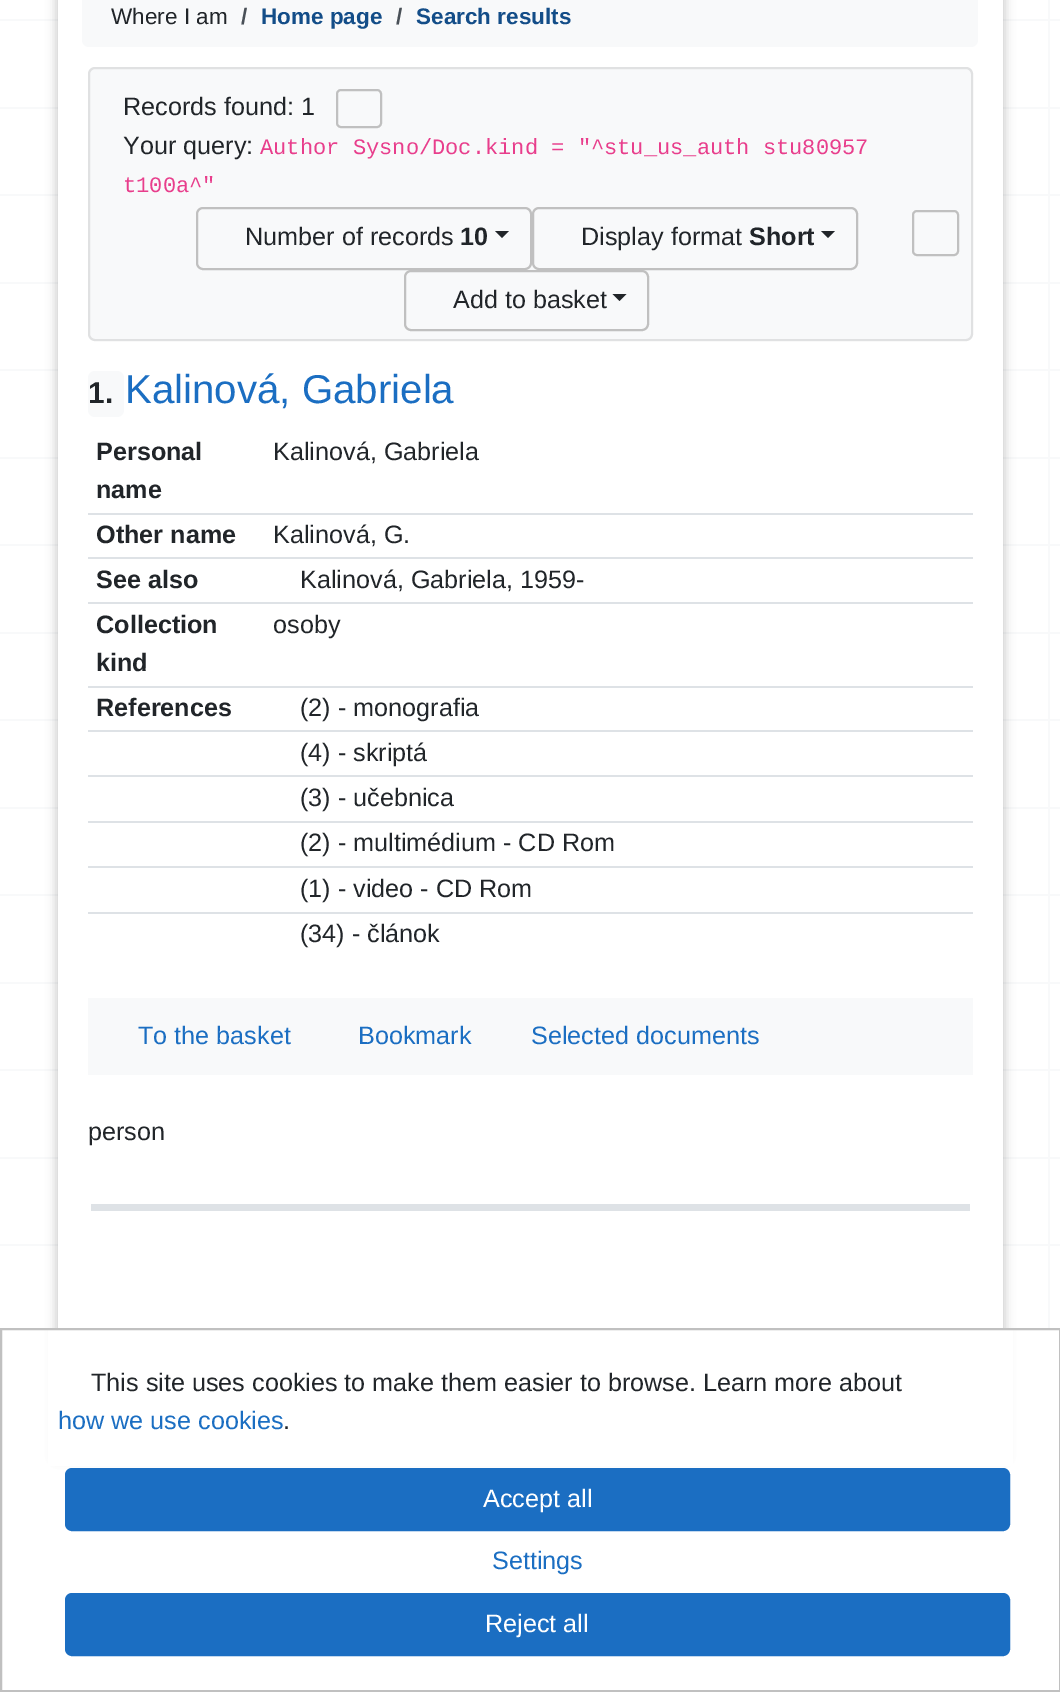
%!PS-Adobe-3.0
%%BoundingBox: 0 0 1060 1692
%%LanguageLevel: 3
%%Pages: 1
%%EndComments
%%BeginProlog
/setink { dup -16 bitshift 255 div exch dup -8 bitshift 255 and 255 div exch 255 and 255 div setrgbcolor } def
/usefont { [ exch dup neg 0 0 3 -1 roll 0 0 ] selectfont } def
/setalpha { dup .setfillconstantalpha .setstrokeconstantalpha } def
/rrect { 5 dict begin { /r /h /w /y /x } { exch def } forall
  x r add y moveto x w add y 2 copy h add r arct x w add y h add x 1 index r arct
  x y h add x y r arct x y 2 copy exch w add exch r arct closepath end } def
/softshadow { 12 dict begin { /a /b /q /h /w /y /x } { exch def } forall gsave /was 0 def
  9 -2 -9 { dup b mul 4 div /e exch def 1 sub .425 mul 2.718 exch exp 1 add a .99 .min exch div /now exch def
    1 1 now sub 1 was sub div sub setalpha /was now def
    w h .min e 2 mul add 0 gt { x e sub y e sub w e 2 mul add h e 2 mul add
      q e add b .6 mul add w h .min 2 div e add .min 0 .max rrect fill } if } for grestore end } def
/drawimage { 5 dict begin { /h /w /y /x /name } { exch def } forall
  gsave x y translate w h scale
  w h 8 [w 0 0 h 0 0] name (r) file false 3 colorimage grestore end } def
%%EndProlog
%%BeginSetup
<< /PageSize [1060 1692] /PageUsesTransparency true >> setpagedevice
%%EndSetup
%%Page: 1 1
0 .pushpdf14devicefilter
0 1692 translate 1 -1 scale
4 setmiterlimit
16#FFFFFF setink
0 0 1060 1692 rectfill
16#F8F9FA setink
1048 0 2 1328 rectfill
(img1.raw) 0 19 1060 1227 drawimage
16#000000 setink
56 -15 949 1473 0 5 0.2 softshadow
16#FFFFFF setink
58 0 945 1328 rectfill
16#F8F9FA setink
82 -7 896 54 7 rrect fill
/LiberationSans-Regular 22.5 usefont
16#212529 setink
111 24 moveto (Where I am) show
/LiberationSans-Bold 22.5 usefont
16#495057 setink
241 24 moveto (/) show
16#134D88 setink
261 24 moveto (Home page) show
16#495057 setink
396 24 moveto (/) show
16#134D88 setink
416 24 moveto (Search results) show
16#F8F9FA setink
88 67 885 274 7 rrect fill
0.12 setalpha
16#333333 setink
2 setlinewidth
89 68 883 272 6 rrect stroke
/LiberationSans-Regular 25.2 usefont
1 setalpha
16#212529 setink
123 115 moveto (Records found: 1) show
16#C0C0C0 setink
337 90 44 37 4 rrect stroke
16#212529 setink
123 154 moveto (Your query:) show
/LiberationMono-Regular 22.05 usefont
16#E83E8C setink
260 154 moveto (Author Sysno/Doc.kind = "^stu_us_auth stu80957) show
123 192 moveto (t100a^") show
16#C0C0C0 setink
197 208 334 61 6 rrect stroke
/LiberationSans-Regular 25.2 usefont
16#212529 setink
245 245 moveto (Number of records) show
/LiberationSans-Bold 25.2 usefont
460 245 moveto (10) show
495 231 moveto 509 231 lineto 502 238 lineto closepath fill
16#C0C0C0 setink
533 208 324 61 6 rrect stroke
/LiberationSans-Regular 25.2 usefont
16#212529 setink
581 245 moveto (Display format) show
/LiberationSans-Bold 25.2 usefont
749 245 moveto (Short) show
821 231 moveto 835 231 lineto 828 238 lineto closepath fill
16#C0C0C0 setink
405 271 243 59 6 rrect stroke
/LiberationSans-Regular 25.2 usefont
16#212529 setink
453 308 moveto (Add to basket) show
612.5 294 moveto 626.5 294 lineto 619.5 301 lineto closepath fill
16#C0C0C0 setink
913 211 45 44 4 rrect stroke
16#DEE2E6 setink
91 1204 879 7 rectfill
16#F8F9FA setink
88 371 36 46 7 rrect fill
/LiberationSans-Bold 30 usefont
16#212529 setink
88 403 moveto (1.) show
/LiberationSans-Regular 40.25 usefont
16#1B6EC2 setink
125 403 moveto (Kalinová, Gabriela) show
/LiberationSans-Bold 25.2 usefont
16#212529 setink
96 460 moveto (Personal) show
96 498 moveto (name) show
/LiberationSans-Regular 25.2 usefont
273 460 moveto (Kalinová, Gabriela) show
/LiberationSans-Bold 25.2 usefont
96 543 moveto (Other name) show
16#DEE2E6 setink
88 513 885 2 rectfill
/LiberationSans-Regular 25.2 usefont
16#212529 setink
273 543 moveto (Kalinová, G.) show
/LiberationSans-Bold 25.2 usefont
96 588 moveto (See also) show
16#DEE2E6 setink
88 557 885 2 rectfill
/LiberationSans-Regular 25.2 usefont
16#212529 setink
300 588 moveto (Kalinová, Gabriela, 1959-) show
/LiberationSans-Bold 25.2 usefont
96 633 moveto (Collection) show
96 671 moveto (kind) show
16#DEE2E6 setink
88 602 885 2 rectfill
/LiberationSans-Regular 25.2 usefont
16#212529 setink
273 633 moveto (osoby) show
/LiberationSans-Bold 25.2 usefont
96 716 moveto (References) show
16#DEE2E6 setink
88 686 885 2 rectfill
/LiberationSans-Regular 25.2 usefont
16#212529 setink
300 716 moveto (\(2\) - monografia) show
16#DEE2E6 setink
88 730 885 2 rectfill
16#212529 setink
300 761 moveto (\(4\) - skriptá) show
16#DEE2E6 setink
88 775 885 2 rectfill
16#212529 setink
300 806 moveto (\(3\) - učebnica) show
16#DEE2E6 setink
88 821 885 2 rectfill
16#212529 setink
300 851 moveto (\(2\) - multimédium - CD Rom) show
16#DEE2E6 setink
88 866 885 2 rectfill
16#212529 setink
300 897 moveto (\(1\) - video - CD Rom) show
16#DEE2E6 setink
88 912 885 2 rectfill
16#212529 setink
300 942 moveto (\(34\) - článok) show
16#F8F9FA setink
88 998 885 77 rectfill
16#1B6EC2 setink
[
    [(To the basket) 138 1044]
    [(Bookmark) 358 1044]
    [(Selected documents) 531 1044]
] { aload pop moveto show } forall
16#212529 setink
88 1140 moveto (person) show
16#FFFFFF setink
48 1330 965 136 rectfill
16#C0C0C0 setink
1 1329 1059 362 rectstroke
16#212529 setink
91 1391 moveto (This site uses cookies to make them easier to browse. Learn more about) show
16#1B6EC2 setink
58 1429 moveto (how we use cookies) show
16#212529 setink
283 1429 moveto (.) show
16#1B6EC2 setink
66 1469 943 61 6 rrect gsave fill grestore
stroke
16#FFFFFF setink
483 1507 moveto (Accept all) show
16#1B6EC2 setink
492 1569 moveto (Settings) show
66 1594 943 61 6 rrect gsave fill grestore
stroke
16#FFFFFF setink
485 1632 moveto (Reject all) show
.poppdf14devicefilter showpage
%%EOF
